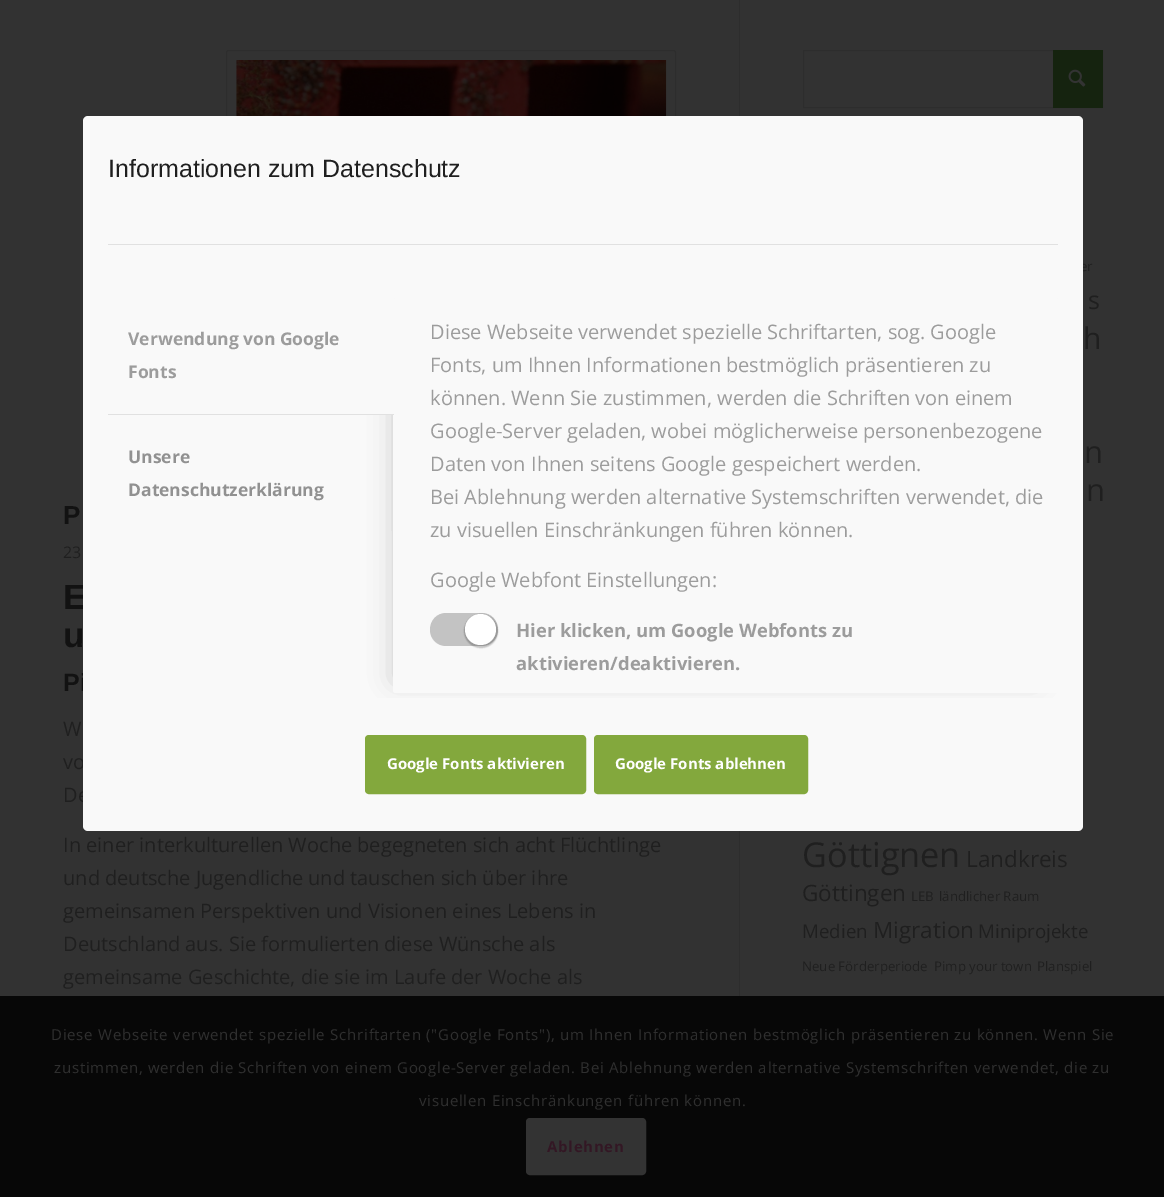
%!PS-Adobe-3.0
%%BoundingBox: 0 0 1164 1197
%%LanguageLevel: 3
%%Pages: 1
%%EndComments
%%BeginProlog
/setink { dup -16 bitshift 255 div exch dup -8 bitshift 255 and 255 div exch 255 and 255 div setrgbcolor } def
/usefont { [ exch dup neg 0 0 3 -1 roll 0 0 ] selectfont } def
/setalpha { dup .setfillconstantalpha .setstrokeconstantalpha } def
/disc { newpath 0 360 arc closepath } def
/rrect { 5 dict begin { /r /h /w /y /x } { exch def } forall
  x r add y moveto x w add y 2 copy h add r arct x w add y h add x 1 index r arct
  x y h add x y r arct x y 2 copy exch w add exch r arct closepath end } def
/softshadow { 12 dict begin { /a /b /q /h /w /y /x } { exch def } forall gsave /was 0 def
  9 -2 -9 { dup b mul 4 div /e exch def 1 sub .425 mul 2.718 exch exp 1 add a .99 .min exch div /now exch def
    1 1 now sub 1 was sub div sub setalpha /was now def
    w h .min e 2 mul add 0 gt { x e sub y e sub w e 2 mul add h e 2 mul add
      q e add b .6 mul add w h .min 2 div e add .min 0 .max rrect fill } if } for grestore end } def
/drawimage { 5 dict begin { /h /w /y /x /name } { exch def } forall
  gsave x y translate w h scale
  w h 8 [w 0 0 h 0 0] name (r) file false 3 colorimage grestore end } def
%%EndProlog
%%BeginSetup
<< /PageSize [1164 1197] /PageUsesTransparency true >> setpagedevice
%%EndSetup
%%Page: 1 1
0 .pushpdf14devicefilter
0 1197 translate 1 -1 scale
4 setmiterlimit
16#323232 setink
0 0 1164 1197 rectfill
16#2D2D2D setink
739 0 1 1197 rectfill
228.5 50.5 moveto 673.5 50.5 lineto 674.5 50.5 675.5 51.5 675.5 52.5 curveto 675.5 417.5 lineto 226.5 417.5 lineto 226.5 52.5 lineto 226.5 51.5 227.5 50.5 228.5 50.5 curveto closepath stroke
/LiberationSans-Bold 35 usefont
16#121212 setink
63 609 moveto (E) show
/LiberationSans-Bold 25 usefont
63 691 moveto (Pi) show
/OpenSans-Regular 20 usefont
16#1F1F1F setink
63 769 moveto (vo) show
63 802 moveto (De) show
/OpenSans-Regular 13.25 usefont
1080 271 moveto (er) show
16#F9F9F9 setink
83 116 1000 715 5 rrect fill
/LiberationSans-Regular 25 usefont
16#1F1F1F setink
108 177 moveto (Informationen zum Datenschutz) show
16#E1E1E1 setink
108 244 950 1 rectfill
gsave
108 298 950 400 rectclip
16#000000 setink
395 310 640 370 0 12.5 0.2 softshadow
grestore
391 414 1 117 rectfill
16#F9F9F9 setink
393 298 665 395 2.5 rrect fill
110.5 298 moveto 394 298 lineto 394 415 lineto 108 415 lineto 108 300.5 lineto 108 299 109 298 110.5 298 curveto closepath fill
16#E1E1E1 setink
108 414 286 1 rectfill
/OpenSans-Bold 17.5 usefont
16#9C9C9C setink
128 345 moveto (Verwendung von Google) show
128 378 moveto (Fonts) show
16#919191 setink
128 463 moveto (Unsere) show
128 496 moveto (Datenschutzerklärung) show
/OpenSans-Regular 20 usefont
16#9C9C9C setink
[
    [(Diese Webseite verwendet spezielle Schriftarten, sog. Google) 430 339]
    [(Fonts, um Ihnen Informationen bestmöglich präsentieren zu) 430 372]
    [(können. Wenn Sie zustimmen, werden die Schriften von einem) 430 405]
    [(Google-Server geladen, wobei möglicherweise personenbezogene) 430 438]
    [(Daten von Ihnen seitens Google gespeichert werden.) 430 471]
    [(Bei Ablehnung werden alternative Systemschriften verwendet, die) 430 504]
    [(zu visuellen Einschränkungen führen können.) 430 537]
    [(Google Webfont Einstellungen:) 430 587]
] { aload pop moveto show } forall
16#E5E5E5 setink
430 613 68 33 16.5 rrect fill
0.15 setalpha
16#000000 setink
446 613 moveto 482 613 lineto 491 613 498 620 498 630 curveto 498 639 491 646 482 646 curveto 446 646 lineto 437 646 430 639 430 630 curveto 430 620 437 613 446 613 curveto closepath fill
1 setalpha
464 614 34 34 17 0.5 0.2 softshadow
16#FFFFFF setink
480.5 629.5 15.5 disc fill
/OpenSans-Bold 18.4 usefont
16#9C9C9C setink
516 637 moveto (Hier klicken, um Google Webfonts zu) show
516 670 moveto (aktivieren/deaktivieren.) show
16#83A83D setink
367.5 737.5 216 54 1.5 rrect gsave fill grestore
5 setlinewidth
stroke
/OpenSans-Bold 15 usefont
16#FFFFFF setink
387 769 moveto (Google Fonts aktivieren) show
16#83A83D setink
596.5 737.5 209 54 1.5 rrect gsave fill grestore
stroke
16#FFFFFF setink
615 769 moveto (Google Fonts ablehnen) show
(img1.raw) 236 60 431 56 drawimage
/LiberationSans-Bold 26 usefont
16#121212 setink
63 524 moveto (P) show
/OpenSans-Regular 16 usefont
16#1F1F1F setink
63 558 moveto (23) show
/LiberationSans-Bold 35 usefont
16#121212 setink
63 647 moveto (u) show
/OpenSans-Regular 20 usefont
16#1F1F1F setink
[
    [(W) 63 736]
    [(In einer interkulturellen Woche begegneten sich acht Flüchtlinge) 63 852]
    [(und deutsche Jugendliche und tauschen sich über ihre) 63 885]
    [(gemeinsamen Perspektiven und Visionen eines Lebens in) 63 918]
    [(Deutschland aus. Sie formulierten diese Wünsche als) 63 951]
    [(gemeinsame Geschichte, die sie im Laufe der Woche als) 63 984]
] { aload pop moveto show } forall
16#2D2D2D setink
1 setlinewidth
803.5 50.5 299 57 rectstroke
16#15230F setink
1053 50 50 58 rectfill
(img2.raw) 1068 69 18 18 drawimage
/OpenSans-Regular 25 usefont
16#1F1F1F setink
1088 309 moveto (s) show
/OpenSans-Regular 30 usefont
1083 349 moveto (h) show
/OpenSans-Regular 31 usefont
1084 463 moveto (n) show
1086 501 moveto (n) show
/OpenSans-Regular 34.25 usefont
802 867 moveto (Göttignen) show
/OpenSans-Regular 22.5 usefont
966 867 moveto (Landkreis) show
802 901 moveto (Göttingen) show
/OpenSans-Regular 13.25 usefont
911 901 moveto (LEB) show
939 901 moveto (ländlicher Raum) show
/OpenSans-Regular 18.75 usefont
802 938 moveto (Medien) show
/OpenSans-Regular 22.5 usefont
873 938 moveto (Migration) show
/OpenSans-Regular 18.75 usefont
978 938 moveto (Miniprojekte) show
/OpenSans-Regular 13.25 usefont
[
    [(Neue Förderperiode) 802 971]
    [(Pimp your town) 934 971]
    [(Planspiel) 1037 971]
] { aload pop moveto show } forall
0.85 setalpha
16#000000 setink
0 996 1164 201 rectfill
/OpenSans-Regular 15 usefont
1 setalpha
16#2F2F2F setink
51 1040 moveto 0.75 0 (Diese Webseite verwendet spezielle Schriftarten \("Google Fonts"\), um Ihnen Informationen bestmöglich präsentieren zu können. Wenn Sie) ashow
54 1073 moveto 0.75 0 (zustimmen, werden die Schriften von einem Google-Server geladen. Bei Ablehnung werden alternative Systemschriften verwendet, die zu) ashow
419 1106 moveto 0.75 0 (visuellen Einschränkungen führen können.) ashow
16#333333 setink
528.5 1120.5 115 52 1.5 rrect gsave fill grestore
5 setlinewidth
stroke
/OpenSans-Bold 15 usefont
16#331724 setink
547 1152 moveto 0.75 0 (Ablehnen) ashow
.poppdf14devicefilter showpage
%%EOF
